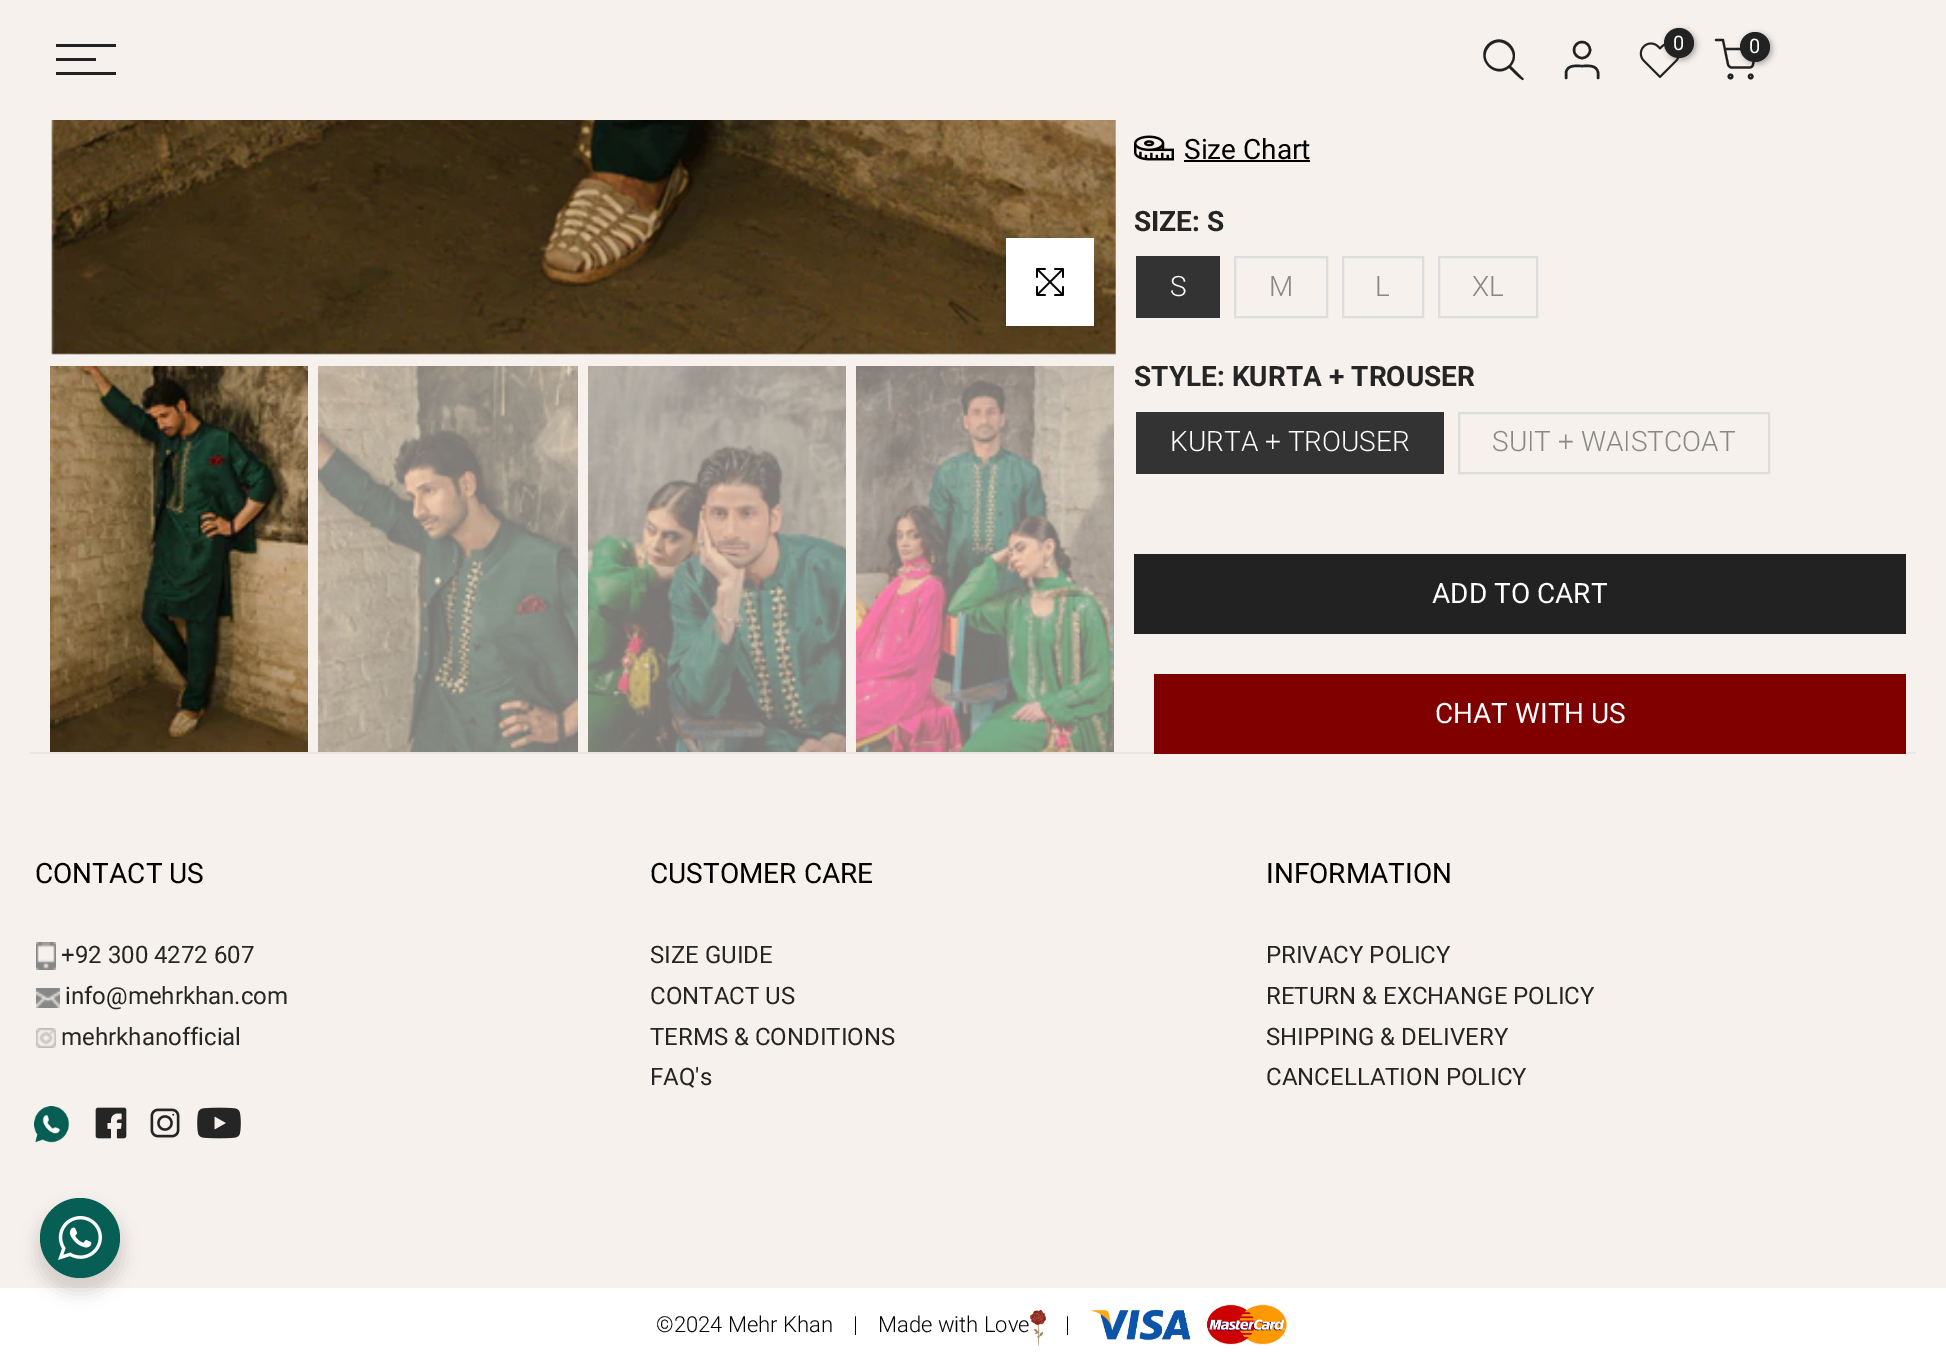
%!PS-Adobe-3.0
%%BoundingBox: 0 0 1946 1368
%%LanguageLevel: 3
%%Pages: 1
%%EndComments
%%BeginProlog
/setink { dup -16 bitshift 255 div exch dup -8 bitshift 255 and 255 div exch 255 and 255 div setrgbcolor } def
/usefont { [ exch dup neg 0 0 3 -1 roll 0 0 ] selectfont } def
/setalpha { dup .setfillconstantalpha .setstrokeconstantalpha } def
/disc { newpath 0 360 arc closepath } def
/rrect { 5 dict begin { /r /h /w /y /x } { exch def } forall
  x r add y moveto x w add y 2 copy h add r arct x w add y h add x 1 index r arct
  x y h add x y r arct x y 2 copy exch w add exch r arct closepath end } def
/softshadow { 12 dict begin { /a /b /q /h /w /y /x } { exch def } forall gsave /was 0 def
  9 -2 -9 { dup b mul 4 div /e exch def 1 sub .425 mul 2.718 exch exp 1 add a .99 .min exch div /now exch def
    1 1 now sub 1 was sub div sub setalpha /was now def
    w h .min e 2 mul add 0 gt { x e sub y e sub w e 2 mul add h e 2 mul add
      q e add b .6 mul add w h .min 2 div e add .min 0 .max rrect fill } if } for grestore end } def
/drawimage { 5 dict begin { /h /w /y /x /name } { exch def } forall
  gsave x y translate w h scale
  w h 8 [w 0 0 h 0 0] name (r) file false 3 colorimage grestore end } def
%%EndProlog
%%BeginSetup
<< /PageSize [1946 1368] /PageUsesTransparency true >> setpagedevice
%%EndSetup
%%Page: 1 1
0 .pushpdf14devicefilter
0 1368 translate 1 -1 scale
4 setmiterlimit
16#F6F1EC setink
0 0 1946 1368 rectfill
[
    [56 44 60 3 16#222222]
    [56 58 40 3 16#222222]
    [56 72 60 3 16#222222]
] { aload pop setink rectfill } forall
1509 65 moveto 1496 77 1477 59 1490 46 curveto 1502 34 1521 53 1509 65 curveto closepath 1509 68 moveto 1494 80 1474 58 1488 44 curveto 1503 30 1524 51 1511 66 curveto 1524 79 lineto 1523 80 lineto 1522 81 1511 70 1509 68 curveto closepath eofill
2.4 setlinewidth
1582 50 8 disc stroke
1 setlinecap
1 setlinejoin
1598 78 moveto 1598 72.5 lineto 1596.5 64.5 1588 66 1582 66 curveto 1576 66 1567.5 64.5 1566 72.5 curveto 1566 78 lineto stroke
(img1.raw) 1639 42 41 36 drawimage
16#000000 setink
1666 30 30 30 15 3 0.3 softshadow
16#222222 setink
1679 43 15 disc fill
/Roboto-Regular 20 usefont
16#FFFFFF setink
1673 50 moveto (0) show
16#222222 setink
2.2 setlinewidth
1716 40 moveto 1723 40 lineto 1728 64.5 lineto 1728.5 66 1730 67.5 1731.5 67.5 curveto 1749.5 67.5 lineto 1751.5 67.5 1753 66 1753 64.5 curveto 1756 49 lineto 1725 49 lineto stroke
0 setlinecap
0 setlinejoin
1730.5 76.5 1.8 disc stroke
1750.7 76.5 1.8 disc stroke
16#000000 setink
1742 34 30 30 15 3 0.3 softshadow
16#222222 setink
1755 47 15 disc fill
16#FFFFFF setink
1749 53 moveto (0) show
(img2.raw) 51 120 1065 235 drawimage
16#000000 setink
1006 238 88 88 0 5 0.09 softshadow
16#FFFFFF setink
1006 238 88 88 rectfill
(img3.raw) 1036 268 28 28 drawimage
(img4.raw) 50 366 258 386 drawimage
(img5.raw) 318 366 260 386 drawimage
(img6.raw) 588 366 258 386 drawimage
(img7.raw) 856 366 258 386 drawimage
(img8.raw) 1134 135 40 26 drawimage
/Roboto-Regular 28 usefont
16#000000 setink
1184 159 moveto (Size Chart) show
1184 160 126 2 rectfill
/Roboto-Bold 28 usefont
16#252525 setink
1134 231 moveto (SIZE: S) show
16#333333 setink
1136 256 84 62 rectfill
/Roboto-Light 28 usefont
16#FFFFFF setink
1170 296 moveto (S) show
16#DDDDDD setink
2 setlinewidth
1235 257 92 60 rectstroke
16#878787 setink
1269 296 moveto (M) show
16#DDDDDD setink
1343 257 80 60 rectstroke
16#878787 setink
1375 296 moveto (L) show
16#DDDDDD setink
1439 257 98 60 rectstroke
16#878787 setink
1472 296 moveto (XL) show
/Roboto-Bold 28 usefont
16#252525 setink
1134 386 moveto (STYLE: KURTA + TROUSER) show
16#333333 setink
1136 412 308 62 rectfill
/Roboto-Light 28 usefont
16#FFFFFF setink
1170 451 moveto (KURTA + TROUSER) show
16#DDDDDD setink
1459 413 310 60 rectstroke
16#878787 setink
1492 451 moveto (SUIT + WAISTCOAT) show
16#222222 setink
1134 554 772 80 rectfill
/Roboto-Regular 28 usefont
16#FFFFFF setink
1432 603 moveto (ADD TO CART) show
16#E6E6E6 setink
30 752 1886 2 rectfill
16#800000 setink
1154 674 752 80 rectfill
16#FFFFFF setink
1435 723 moveto (CHAT WITH US) show
16#000000 setink
35 883 moveto (CONTACT US) show
(img9.raw) 36 942 20 28 drawimage
/Roboto-Regular 24 usefont
16#252525 setink
61 963 moveto (+92 300 4272 607) show
(img10.raw) 36 988 24 20 drawimage
65 1004 moveto (info@mehrkhan.com) show
(img11.raw) 36 1028 20 20 drawimage
61 1045 moveto (mehrkhanofficial) show
(img12.raw) 34 1106 36 37 drawimage
(img13.raw) 95 1107 32 32 drawimage
(img14.raw) 150 1108 30 30 drawimage
(img15.raw) 197 1107 44 32 drawimage
/Roboto-Regular 28 usefont
16#000000 setink
650 883 moveto (CUSTOMER CARE) show
/Roboto-Regular 24 usefont
16#252525 setink
[
    [(SIZE GUIDE) 650 963]
    [(CONTACT US) 650 1004]
    [(TERMS & CONDITIONS) 650 1045]
    [(FAQ's) 650 1085]
] { aload pop moveto show } forall
/Roboto-Regular 28 usefont
16#000000 setink
1266 883 moveto (INFORMATION) show
/Roboto-Regular 24 usefont
16#252525 setink
[
    [(PRIVACY POLICY) 1266 963]
    [(RETURN & EXCHANGE POLICY) 1266 1004]
    [(SHIPPING & DELIVERY) 1266 1045]
    [(CANCELLATION POLICY) 1266 1085]
] { aload pop moveto show } forall
16#FFFFFF setink
0 1288 1946 80 rectfill
/Roboto-Light 22 usefont
16#000000 setink
[
    [(©2024 Mehr Khan) 656 1332]
    [(|) 853 1332]
    [(Made with Love) 878 1332]
] { aload pop moveto show } forall
(img16.raw) 1030 1309 16 38 drawimage
1065 1332 moveto (|) show
(img17.raw) 1091 1304 196 41 drawimage
36 1206 88 88 44 8 0.14 softshadow
16#075E54 setink
80 1238 40 disc fill
(img18.raw) 58 1216 44 44 drawimage
.poppdf14devicefilter showpage
%%EOF
